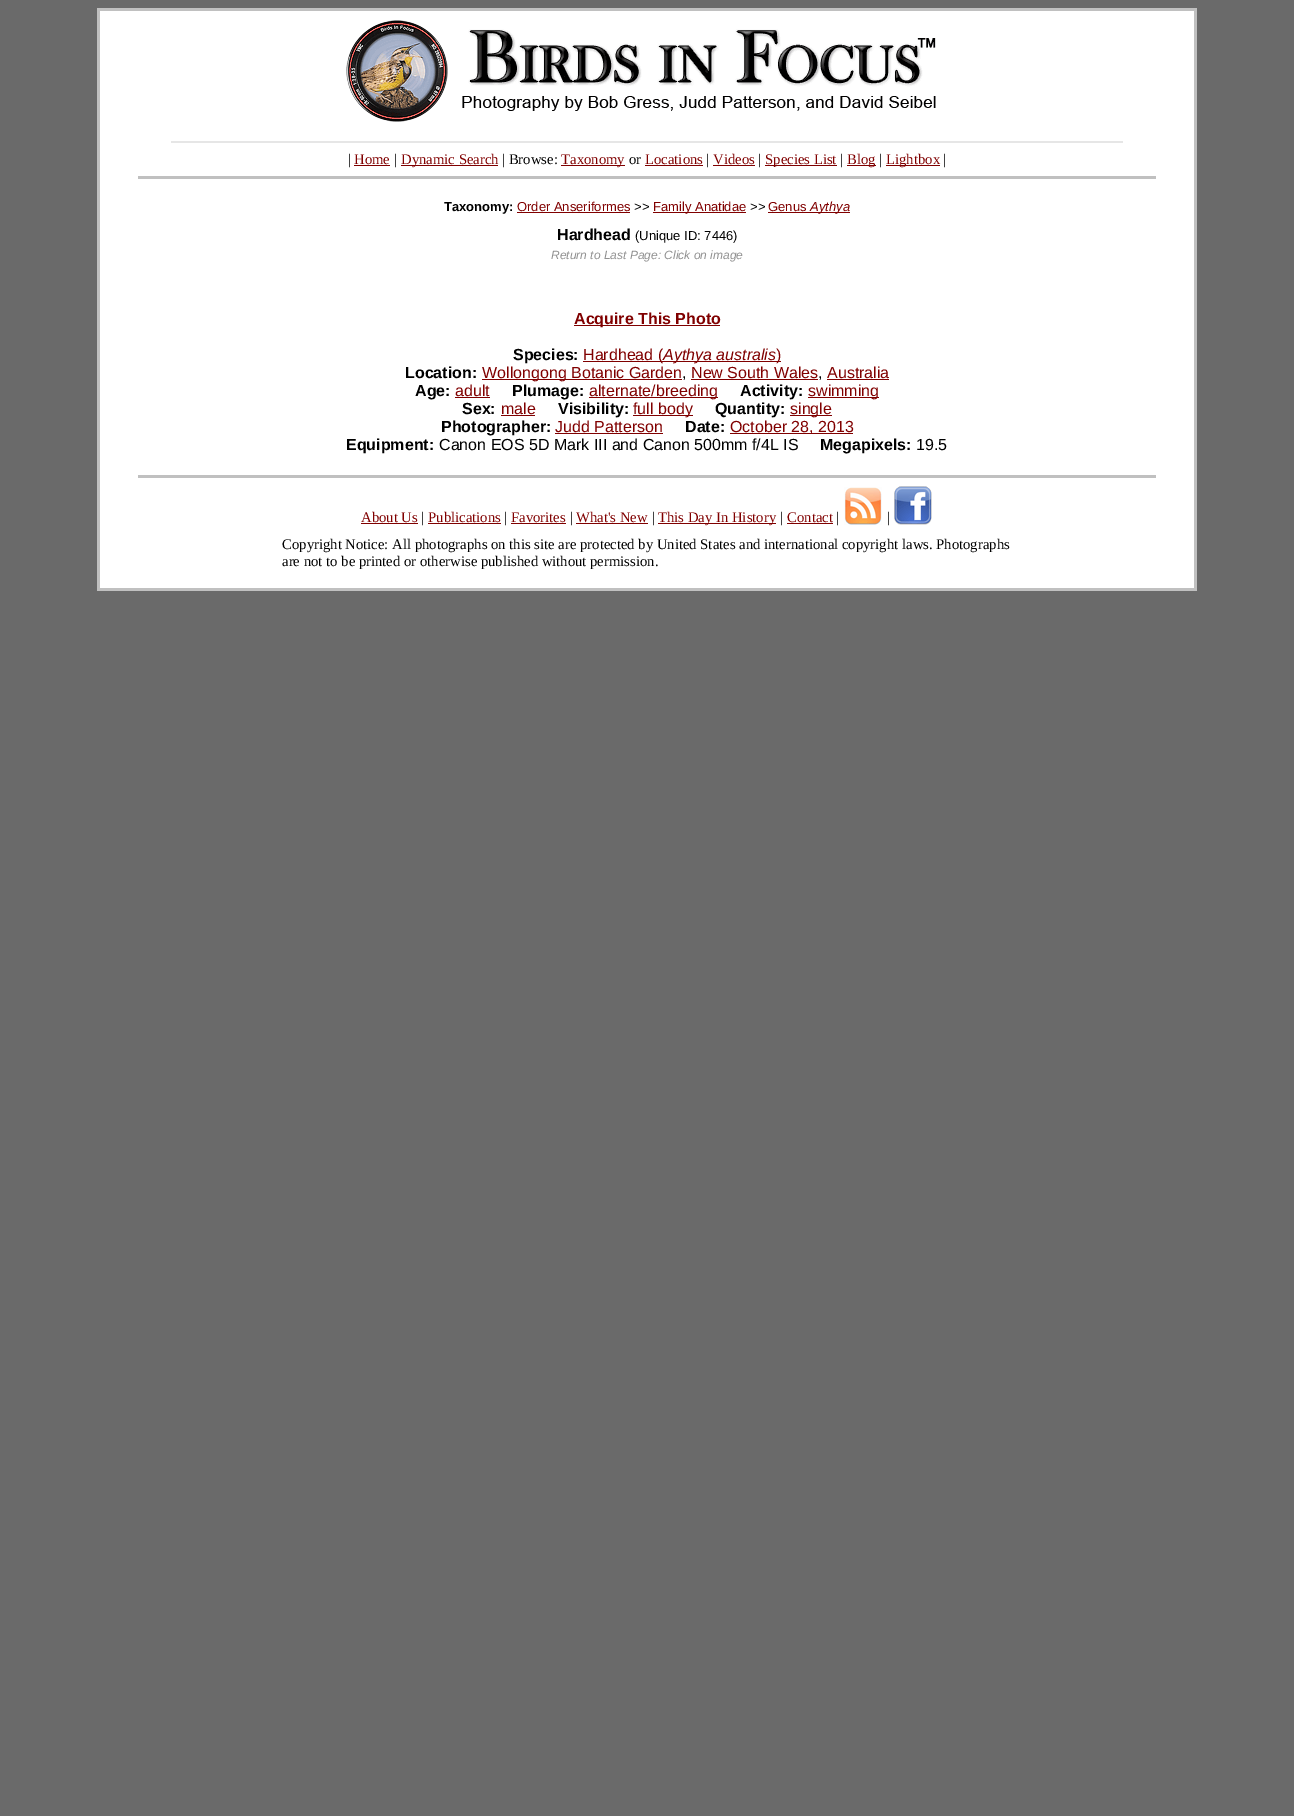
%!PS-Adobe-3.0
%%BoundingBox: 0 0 1294 1816
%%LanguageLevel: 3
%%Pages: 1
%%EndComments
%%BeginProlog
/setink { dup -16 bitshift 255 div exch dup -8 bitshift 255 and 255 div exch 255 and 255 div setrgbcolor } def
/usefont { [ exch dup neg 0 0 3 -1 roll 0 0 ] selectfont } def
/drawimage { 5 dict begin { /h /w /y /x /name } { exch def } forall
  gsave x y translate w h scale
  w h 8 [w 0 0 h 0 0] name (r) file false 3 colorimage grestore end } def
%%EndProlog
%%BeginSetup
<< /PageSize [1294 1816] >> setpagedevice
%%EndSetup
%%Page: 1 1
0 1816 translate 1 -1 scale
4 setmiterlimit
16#6A6A6A setink
0 0 1294 1816 rectfill
[
    [100 11 1094 577 16#FFFFFF]
    [97 8 1100 3 16#C0C0C0]
    [1194 8 3 583 16#C0C0C0]
    [97 588 1100 3 16#C0C0C0]
    [97 8 3 583 16#C0C0C0]
] { aload pop setink rectfill } forall
(img1.raw) 346 20 590 102 drawimage
16#E6E6E6 setink
171 141 952 2 rectfill
/LiberationSerif-Regular 14.7 usefont
16#000000 setink
348 164 moveto (|) show
16#800000 setink
354 164 moveto (Home) show
354 165 36 1 rectfill
16#000000 setink
394 164 moveto (|) show
16#800000 setink
401 165 97 1 rectfill
401 164 moveto (Dynamic Search) show
16#000000 setink
502 164 moveto (| Browse:) show
16#800000 setink
561 165 64 1 rectfill
561 164 moveto (Taxonomy) show
16#000000 setink
629 164 moveto (or) show
16#800000 setink
645 164 moveto (Locations) show
645 165 58 1 rectfill
16#000000 setink
706 164 moveto (|) show
16#800000 setink
713 164 moveto (Videos) show
713 165 42 1 rectfill
16#000000 setink
758 164 moveto (|) show
16#800000 setink
765 165 72 1 rectfill
765 164 moveto (Species List) show
16#000000 setink
840 164 moveto (|) show
16#800000 setink
847 165 29 1 rectfill
847 164 moveto (Blog) show
16#000000 setink
879 164 moveto (|) show
16#800000 setink
886 165 54 1 rectfill
886 164 moveto (Lightbox) show
16#000000 setink
943 164 moveto (|) show
16#C0C0C0 setink
138 176 1018 3 rectfill
/LiberationSans-Bold 13 usefont
16#000000 setink
444 211 moveto (Taxonomy:) show
/LiberationSans-Regular 13 usefont
16#800000 setink
517 211 moveto (Order Anseriformes) show
517 212 113 1 rectfill
16#000000 setink
634 211 moveto (>>) show
16#800000 setink
653 212 93 1 rectfill
653 211 moveto (Family Anatidae) show
16#000000 setink
750 211 moveto (>>) show
16#800000 setink
768 211 moveto (Genus) show
768 212 82 1 rectfill
/LiberationSans-Italic 13 usefont
810 211 moveto (Aythya) show
/LiberationSans-Bold 16 usefont
16#000000 setink
557 240 moveto (Hardhead) show
/LiberationSans-Regular 13 usefont
635 240 moveto (\(Unique ID: 7446\)) show
/LiberationSans-Italic 12 usefont
16#919191 setink
551 259 moveto (Return to Last Page: Click on image) show
16#800000 setink
574 325 146 1 rectfill
/LiberationSans-Bold 16 usefont
574 324 moveto (Acquire This Photo) show
16#000000 setink
513 360 moveto (Species:) show
16#800000 setink
583 361 198 1 rectfill
/LiberationSans-Regular 16 usefont
583 360 moveto (Hardhead \() show
/LiberationSans-Italic 16 usefont
663 360 moveto (Aythya australis) show
/LiberationSans-Regular 16 usefont
776 360 moveto (\)) show
/LiberationSans-Bold 16 usefont
16#000000 setink
405 378 moveto (Location:) show
16#800000 setink
482 379 200 1 rectfill
/LiberationSans-Regular 16 usefont
482 378 moveto (Wollongong Botanic Garden) show
16#000000 setink
682 378 moveto (,) show
16#800000 setink
691 378 moveto (New South Wales) show
691 379 127 1 rectfill
16#000000 setink
818 378 moveto (,) show
16#800000 setink
827 378 moveto (Australia) show
827 379 62 1 rectfill
/LiberationSans-Bold 16 usefont
16#000000 setink
415 396 moveto (Age:) show
/LiberationSans-Regular 16 usefont
16#800000 setink
455 396 moveto (adult) show
455 397 35 1 rectfill
/LiberationSans-Bold 16 usefont
16#000000 setink
512 396 moveto (Plumage:) show
16#800000 setink
589 397 129 1 rectfill
/LiberationSans-Regular 16 usefont
589 396 moveto (alternate/breeding) show
/LiberationSans-Bold 16 usefont
16#000000 setink
740 396 moveto (Activity:) show
16#800000 setink
808 397 71 1 rectfill
/LiberationSans-Regular 16 usefont
808 396 moveto (swimming) show
/LiberationSans-Bold 16 usefont
16#000000 setink
462 414 moveto (Sex:) show
/LiberationSans-Regular 16 usefont
16#800000 setink
501 414 moveto (male) show
501 415 34 1 rectfill
/LiberationSans-Bold 16 usefont
16#000000 setink
558 414 moveto (Visibility:) show
16#800000 setink
633 415 60 1 rectfill
/LiberationSans-Regular 16 usefont
633 414 moveto (full body) show
/LiberationSans-Bold 16 usefont
16#000000 setink
715 414 moveto (Quantity:) show
16#800000 setink
790 415 42 1 rectfill
/LiberationSans-Regular 16 usefont
790 414 moveto (single) show
/LiberationSans-Bold 16 usefont
16#000000 setink
441 432 moveto (Photographer:) show
/LiberationSans-Regular 16 usefont
16#800000 setink
555 432 moveto (Judd Patterson) show
555 433 108 1 rectfill
/LiberationSans-Bold 16 usefont
16#000000 setink
685 432 moveto (Date:) show
16#800000 setink
730 433 123 1 rectfill
/LiberationSans-Regular 16 usefont
730 432 moveto (October 28, 2013) show
/LiberationSans-Bold 16 usefont
16#000000 setink
346 450 moveto (Equipment:) show
/LiberationSans-Regular 16 usefont
439 450 moveto (Canon EOS 5D Mark III and Canon 500mm f/4L IS) show
/LiberationSans-Bold 16 usefont
820 450 moveto (Megapixels:) show
/LiberationSans-Regular 16 usefont
916 450 moveto (19.5) show
16#C0C0C0 setink
138 475 1018 3 rectfill
/LiberationSerif-Regular 14.7 usefont
16#800000 setink
361 522 moveto (About Us) show
361 523 57 1 rectfill
16#000000 setink
421 522 moveto (|) show
16#800000 setink
428 522 moveto (Publications) show
428 523 73 1 rectfill
16#000000 setink
504 522 moveto (|) show
16#800000 setink
511 522 moveto (Favorites) show
511 523 55 1 rectfill
16#000000 setink
570 522 moveto (|) show
16#800000 setink
576 522 moveto (What's New) show
576 523 72 1 rectfill
16#000000 setink
652 522 moveto (|) show
16#800000 setink
658 523 118 1 rectfill
658 522 moveto (This Day In History) show
16#000000 setink
780 522 moveto (|) show
16#800000 setink
787 522 moveto (Contact) show
787 523 46 1 rectfill
16#000000 setink
836 522 moveto (|) show
(img2.raw) 844 487 38 38 drawimage
887 522 moveto (|) show
(img3.raw) 894 486 38 39 drawimage
282 549 moveto (Copyright Notice: All photographs on this site are protected by United States and international copyright laws. Photographs) show
282 566 moveto (are not to be printed or otherwise published without permission.) show
showpage
%%EOF
